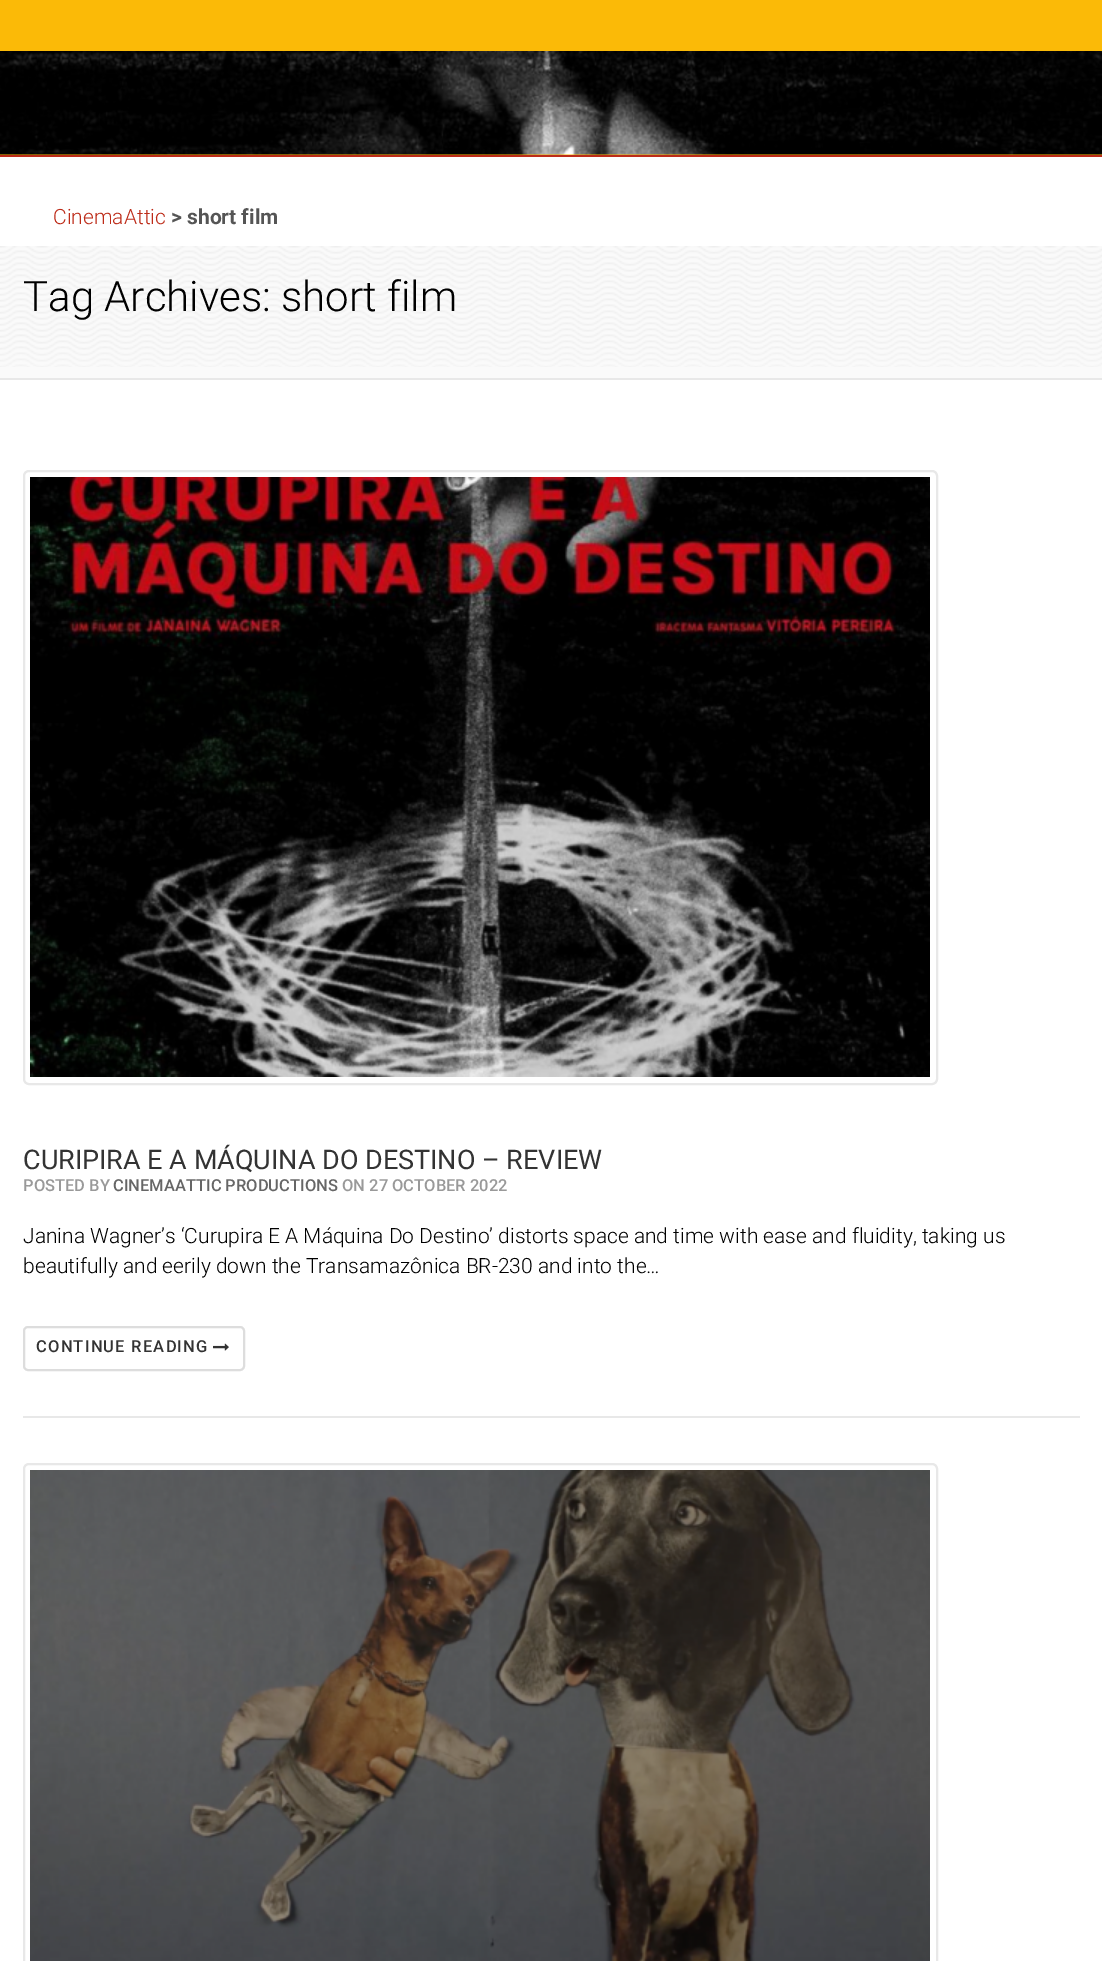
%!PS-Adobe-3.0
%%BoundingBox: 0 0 1102 1961
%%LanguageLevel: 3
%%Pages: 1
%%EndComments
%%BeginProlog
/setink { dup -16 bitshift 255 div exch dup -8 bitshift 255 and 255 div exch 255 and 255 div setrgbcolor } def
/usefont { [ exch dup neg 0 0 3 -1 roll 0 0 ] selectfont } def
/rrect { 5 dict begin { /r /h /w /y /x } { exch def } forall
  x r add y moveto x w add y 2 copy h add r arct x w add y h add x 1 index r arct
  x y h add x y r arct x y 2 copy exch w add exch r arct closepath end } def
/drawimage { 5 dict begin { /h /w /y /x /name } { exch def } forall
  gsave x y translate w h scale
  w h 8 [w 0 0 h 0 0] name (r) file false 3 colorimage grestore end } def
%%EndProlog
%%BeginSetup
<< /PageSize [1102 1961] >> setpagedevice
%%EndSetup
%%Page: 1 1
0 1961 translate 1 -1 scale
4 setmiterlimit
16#FFFFFF setink
0 0 1102 1961 rectfill
16#FBBA07 setink
0 0 1102 155 rectfill
16#BD2B18 setink
0 155 1102 2 rectfill
(img1.raw) 0 51 1102 104 drawimage
/Roboto-Light 21 usefont
53 224 moveto (CinemaAttic) show
/Roboto-Bold 21 usefont
16#555555 setink
171 224 moveto (> short film) show
16#FAFAFA setink
0 246 1102 132 rectfill
(img2.raw) 0 246 1102 121 drawimage
16#E8E8E8 setink
0 378 1102 2 rectfill
/Roboto-Light 42 usefont
16#000000 setink
23 311 moveto (Tag Archives: short film) show
16#E8E8E8 setink
23 1416 1057 2 rectfill
2 setlinewidth
24 471 913 613 5 rrect stroke
(img3.raw) 30 477 900 600 drawimage
/Roboto-Regular 27 usefont
16#333333 setink
23 1169 moveto (CURIPIRA E A MÁQUINA DO DESTINO – REVIEW) show
/Roboto-Medium 16.5 usefont
16#999999 setink
23 1191 moveto (POSTED BY) show
16#666666 setink
113 1191 moveto (CINEMAATTIC PRODUCTIONS) show
16#999999 setink
342 1191 moveto (ON 27 OCTOBER 2022) show
/Roboto-Light 21 usefont
16#000000 setink
23 1243 moveto (Janina Wagner’s ‘Curupira E A Máquina Do Destino’ distorts space and time with ease and fluidity, taking us) show
23 1273 moveto (beautifully and eerily down the Transamazônica BR-230 and into the…) show
16#DDDDDD setink
24 1327 220 43 4 rrect stroke
/Roboto-Medium 16.5 usefont
16#333333 setink
36 1352 moveto 1.2 0 (CONTINUE READING) ashow
(img4.raw) 213 1343 16 8 drawimage
16#E8E8E8 setink
24 1464 913 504 5 rrect stroke
(img5.raw) 30 1470 900 491 drawimage
showpage
%%EOF
